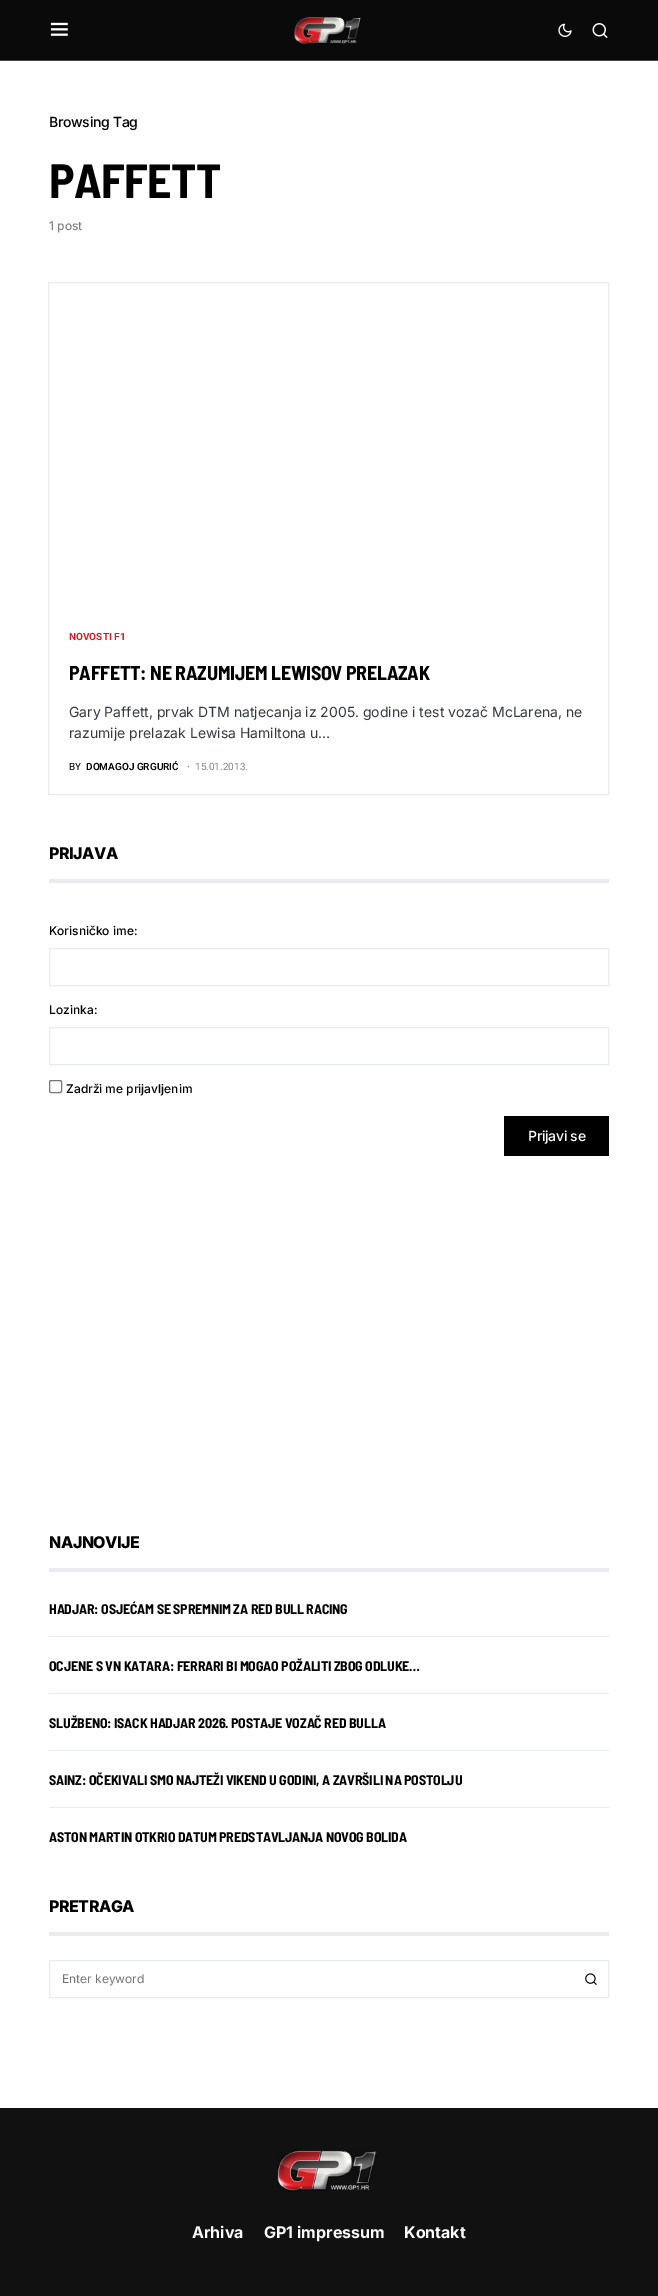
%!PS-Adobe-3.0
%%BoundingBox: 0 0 658 2296
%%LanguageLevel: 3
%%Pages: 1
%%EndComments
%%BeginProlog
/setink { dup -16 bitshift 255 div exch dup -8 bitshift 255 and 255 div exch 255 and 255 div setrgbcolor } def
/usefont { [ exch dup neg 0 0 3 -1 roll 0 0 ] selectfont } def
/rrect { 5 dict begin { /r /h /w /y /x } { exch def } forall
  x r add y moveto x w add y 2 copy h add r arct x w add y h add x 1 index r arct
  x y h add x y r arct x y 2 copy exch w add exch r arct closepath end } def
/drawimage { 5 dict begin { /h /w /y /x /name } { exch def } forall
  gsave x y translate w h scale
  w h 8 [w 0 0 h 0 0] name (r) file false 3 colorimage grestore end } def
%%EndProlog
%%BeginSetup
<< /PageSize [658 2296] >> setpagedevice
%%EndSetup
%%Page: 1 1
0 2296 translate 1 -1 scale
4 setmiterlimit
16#FFFFFF setink
0 0 658 2296 rectfill
16#0A0A0A setink
0 0 658 60 rectfill
16#494949 setink
0 60 658 1 rectfill
(img1.raw) 50 22 18 14 drawimage
(img2.raw) 294 17 67 27 drawimage
(img3.raw) 558 23 14 14 drawimage
(img4.raw) 592 23 16 15 drawimage
/Inter-Medium 14 usefont
16#000000 setink
49 127 moveto -0.3 0 (Browsing Tag) ashow
/BarlowSemiCondensed-Bold 48 usefont
49 198 moveto -0.5 0 (PAFFETT) ashow
/Inter-Medium 12 usefont
16#818181 setink
49 230 moveto (1 post) show
16#E9ECEF setink
48.5 282.5 560 512 rectstroke
/Roboto-Bold 10 usefont
16#CD2027 setink
69 640 moveto (NOVOSTI F1) show
/BarlowSemiCondensed-Bold 20 usefont
16#000000 setink
69 680 moveto -0.25 0 (PAFFETT: NE RAZUMIJEM LEWISOV PRELAZAK) ashow
/Inter-Regular 14 usefont
16#343A40 setink
69 717 moveto (Gary Paffett, prvak DTM natjecanja iz 2005. godine i test vozač McLarena, ne) show
69 738 moveto (razumije prelazak Lewisa Hamiltona u…) show
/Roboto-Regular 10 usefont
16#000000 setink
69 770 moveto (BY) show
/Roboto-SemiBold 10 usefont
86 770 moveto (DOMAGOJ GRGURIĆ) show
16#818181 setink
187 770 moveto (·) show
/Roboto-Regular 10 usefont
195 770 moveto (15.01.2013.) show
16#E9ECEF setink
49 879 560 4 rectfill
/Inter-ExtraBold 16 usefont
16#000000 setink
49 859 moveto -0.5 0 (PRIJAVA) ashow
/Inter-Medium 12 usefont
49 935 moveto (Korisničko ime:) show
16#E9ECEF setink
49.5 948.5 559 37 rectstroke
16#000000 setink
49 1014 moveto (Lozinka:) show
16#E9ECEF setink
49.5 1027.5 559 37 rectstroke
16#767676 setink
49.5 1080.5 12 12 1.5 rrect stroke
16#000000 setink
66 1093 moveto (Zadrži me prijavljenim) show
504 1116 105 40 rectfill
/Inter-Medium 14 usefont
16#FFFFFF setink
528 1141 moveto -0.3 0 (Prijavi se) ashow
16#E9ECEF setink
49 1568 560 4 rectfill
/Inter-ExtraBold 16 usefont
16#000000 setink
49 1548 moveto -0.5 0 (NAJNOVIJE) ashow
16#E9ECEF setink
49 1636 560 1 rectfill
/BarlowSemiCondensed-Bold 14 usefont
16#000000 setink
49 1614 moveto -0.17 0 (HADJAR: OSJEĆAM SE SPREMNIM ZA RED BULL RACING) ashow
16#E9ECEF setink
49 1693 560 1 rectfill
16#000000 setink
49 1671 moveto -0.17 0 (OCJENE S VN KATARA: FERRARI BI MOGAO POŽALITI ZBOG ODLUKE…) ashow
16#E9ECEF setink
49 1750 560 1 rectfill
16#000000 setink
49 1728 moveto -0.17 0 (SLUŽBENO: ISACK HADJAR 2026. POSTAJE VOZAČ RED BULLA) ashow
16#E9ECEF setink
49 1807 560 1 rectfill
16#000000 setink
49 1785 moveto -0.17 0 (SAINZ: OČEKIVALI SMO NAJTEŽI VIKEND U GODINI, A ZAVRŠILI NA POSTOLJU) ashow
49 1842 moveto -0.17 0 (ASTON MARTIN OTKRIO DATUM PREDSTAVLJANJA NOVOG BOLIDA) ashow
16#E9ECEF setink
49 1932 560 4 rectfill
/Inter-ExtraBold 16 usefont
16#000000 setink
49 1912 moveto -0.5 0 (PRETRAGA) ashow
16#E9ECEF setink
49.5 1960.5 559 37 rectstroke
/Inter-Regular 12 usefont
16#757575 setink
62 1983 moveto (Enter keyword) show
(img5.raw) 585 1973 12 12 drawimage
16#111111 setink
0 2108 658 188 rectfill
(img6.raw) 277 2150 100 42 drawimage
/Inter-Bold 16 usefont
16#FFFFFF setink
[
    [(Arhiva) 192 2238]
    [(GP1 impressum) 264 2238]
    [(Kontakt) 404 2238]
] { aload pop moveto show } forall
showpage
%%EOF
